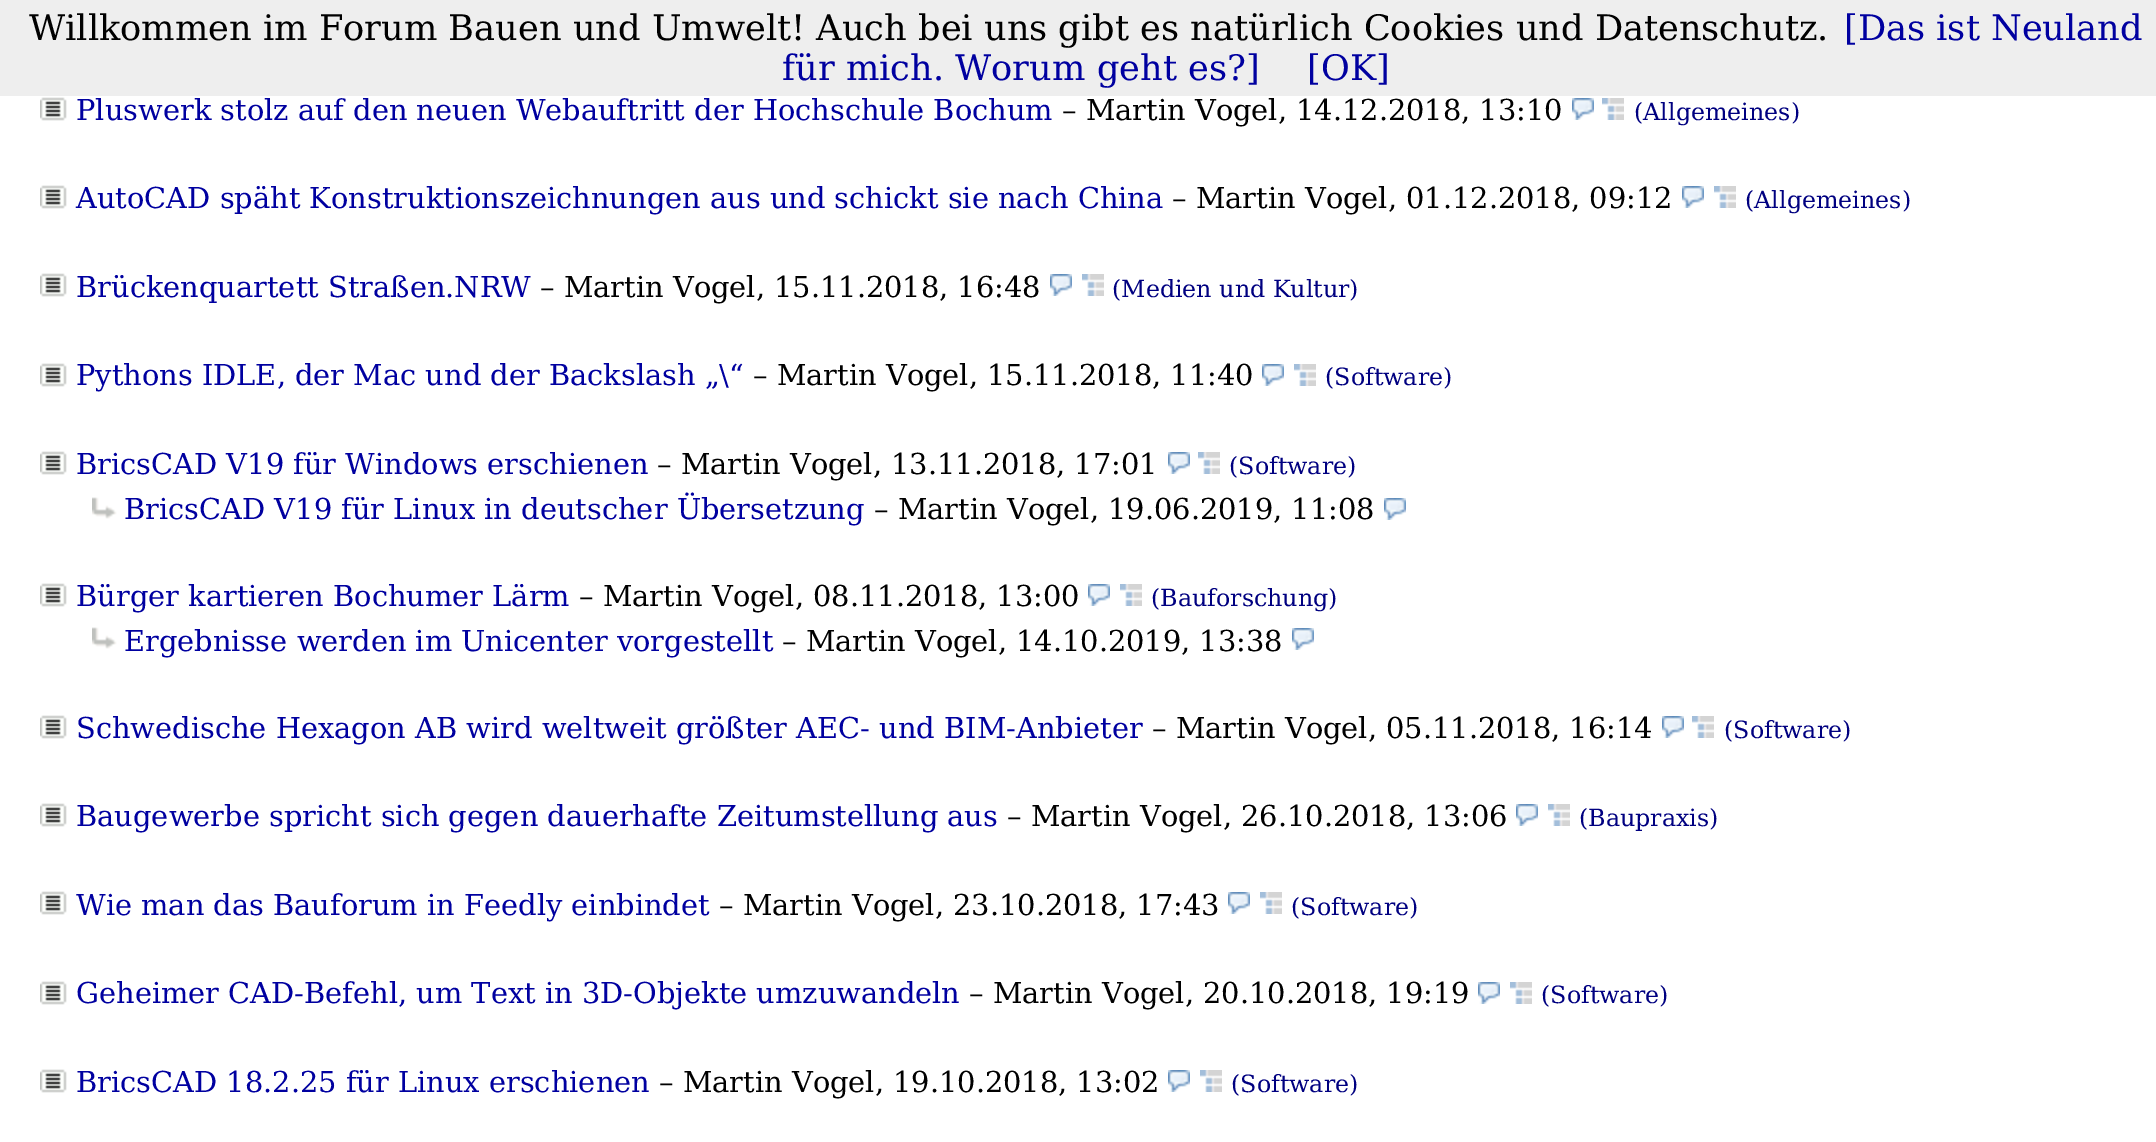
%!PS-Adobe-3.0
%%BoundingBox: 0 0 2156 1142
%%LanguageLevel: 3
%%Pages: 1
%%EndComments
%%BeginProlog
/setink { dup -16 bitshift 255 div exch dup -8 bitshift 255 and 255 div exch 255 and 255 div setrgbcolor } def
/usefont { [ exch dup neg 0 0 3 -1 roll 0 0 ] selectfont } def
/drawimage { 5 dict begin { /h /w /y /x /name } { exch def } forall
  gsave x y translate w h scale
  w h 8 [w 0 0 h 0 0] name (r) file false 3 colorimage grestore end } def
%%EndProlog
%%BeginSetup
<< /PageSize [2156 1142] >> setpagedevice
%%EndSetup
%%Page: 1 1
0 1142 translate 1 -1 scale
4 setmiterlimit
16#FFFFFF setink
0 0 2156 1142 rectfill
16#EEEEEE setink
0 0 2156 96 rectfill
/DejaVuSerif-Regular 35.2 usefont
16#000000 setink
29 40 moveto (Willkommen im Forum Bauen und Umwelt! Auch bei uns gibt es natürlich Cookies und Datenschutz.) show
16#0000A0 setink
[
    [([Das ist Neuland) 1844 40]
    [(für mich. Worum geht es?]) 782 80]
    [([OK]) 1307 80]
] { aload pop moveto show } forall
(img1.raw) 40 97 27 24 drawimage
/DejaVuSerif-Regular 28.85 usefont
76 120 moveto (Pluswerk stolz auf den neuen Webauftritt der Hochschule Bochum) show
16#000000 setink
1062 120 moveto (– Martin Vogel, 14.12.2018, 13:10) show
(img2.raw) 1572 98 22 22 drawimage
(img3.raw) 1602 98 22 22 drawimage
/DejaVuSerif-Regular 23.75 usefont
16#000080 setink
1634 120 moveto (\(Allgemeines\)) show
(img1.raw) 40 185 27 24 drawimage
/DejaVuSerif-Regular 28.85 usefont
16#0000A0 setink
76 208 moveto (AutoCAD späht Konstruktionszeichnungen aus und schickt sie nach China) show
16#000000 setink
1172 208 moveto (– Martin Vogel, 01.12.2018, 09:12) show
(img2.raw) 1682 186 22 22 drawimage
(img3.raw) 1714 186 22 22 drawimage
/DejaVuSerif-Regular 23.75 usefont
16#000080 setink
1745 208 moveto (\(Allgemeines\)) show
(img1.raw) 40 273 27 24 drawimage
/DejaVuSerif-Regular 28.85 usefont
16#0000A0 setink
76 297 moveto (Brückenquartett Straßen.NRW) show
16#000000 setink
540 297 moveto (– Martin Vogel, 15.11.2018, 16:48) show
(img2.raw) 1050 274 22 22 drawimage
(img3.raw) 1082 274 22 22 drawimage
/DejaVuSerif-Regular 23.75 usefont
16#000080 setink
1112 297 moveto (\(Medien und Kultur\)) show
(img1.raw) 40 363 27 24 drawimage
/DejaVuSerif-Regular 28.85 usefont
16#0000A0 setink
76 385 moveto (Pythons IDLE, der Mac und der Backslash „\\“) show
16#000000 setink
753 385 moveto (– Martin Vogel, 15.11.2018, 11:40) show
(img2.raw) 1262 364 22 22 drawimage
(img3.raw) 1294 364 22 22 drawimage
/DejaVuSerif-Regular 23.75 usefont
16#000080 setink
1325 385 moveto (\(Software\)) show
(img1.raw) 40 451 27 24 drawimage
/DejaVuSerif-Regular 28.85 usefont
16#0000A0 setink
76 474 moveto (BricsCAD V19 für Windows erschienen) show
16#000000 setink
657 474 moveto (– Martin Vogel, 13.11.2018, 17:01) show
(img2.raw) 1168 452 22 22 drawimage
(img3.raw) 1198 452 22 22 drawimage
/DejaVuSerif-Regular 23.75 usefont
16#000080 setink
1229 474 moveto (\(Software\)) show
(img4.raw) 92 497 25 22 drawimage
/DejaVuSerif-Regular 28.85 usefont
16#0000A0 setink
124 519 moveto (BricsCAD V19 für Linux in deutscher Übersetzung) show
16#000000 setink
874 519 moveto (– Martin Vogel, 19.06.2019, 11:08) show
(img2.raw) 1384 498 22 22 drawimage
(img1.raw) 40 583 27 24 drawimage
16#0000A0 setink
76 606 moveto (Bürger kartieren Bochumer Lärm) show
16#000000 setink
579 606 moveto (– Martin Vogel, 08.11.2018, 13:00) show
(img2.raw) 1088 584 22 22 drawimage
(img3.raw) 1120 584 22 22 drawimage
/DejaVuSerif-Regular 23.75 usefont
16#000080 setink
1151 606 moveto (\(Bauforschung\)) show
(img4.raw) 92 627 25 22 drawimage
/DejaVuSerif-Regular 28.85 usefont
16#0000A0 setink
124 651 moveto (Ergebnisse werden im Unicenter vorgestellt) show
16#000000 setink
782 651 moveto (– Martin Vogel, 14.10.2019, 13:38) show
(img2.raw) 1292 628 22 22 drawimage
(img1.raw) 40 715 27 24 drawimage
16#0000A0 setink
76 738 moveto (Schwedische Hexagon AB wird weltweit größter AEC- und BIM-Anbieter) show
16#000000 setink
1152 738 moveto (– Martin Vogel, 05.11.2018, 16:14) show
(img2.raw) 1662 716 22 22 drawimage
(img3.raw) 1692 716 22 22 drawimage
/DejaVuSerif-Regular 23.75 usefont
16#000080 setink
1724 738 moveto (\(Software\)) show
(img1.raw) 40 803 27 24 drawimage
/DejaVuSerif-Regular 28.85 usefont
16#0000A0 setink
76 826 moveto (Baugewerbe spricht sich gegen dauerhafte Zeitumstellung aus) show
16#000000 setink
1007 826 moveto (– Martin Vogel, 26.10.2018, 13:06) show
(img2.raw) 1516 804 22 22 drawimage
(img3.raw) 1548 804 22 22 drawimage
/DejaVuSerif-Regular 23.75 usefont
16#000080 setink
1579 826 moveto (\(Baupraxis\)) show
(img1.raw) 40 891 27 24 drawimage
/DejaVuSerif-Regular 28.85 usefont
16#0000A0 setink
76 915 moveto (Wie man das Bauforum in Feedly einbindet) show
16#000000 setink
719 915 moveto (– Martin Vogel, 23.10.2018, 17:43) show
(img2.raw) 1228 892 22 22 drawimage
(img3.raw) 1260 892 22 22 drawimage
/DejaVuSerif-Regular 23.75 usefont
16#000080 setink
1291 915 moveto (\(Software\)) show
(img1.raw) 40 981 27 24 drawimage
/DejaVuSerif-Regular 28.85 usefont
16#0000A0 setink
76 1003 moveto (Geheimer CAD-Befehl, um Text in 3D-Objekte umzuwandeln) show
16#000000 setink
969 1003 moveto (– Martin Vogel, 20.10.2018, 19:19) show
(img2.raw) 1478 982 22 22 drawimage
(img3.raw) 1510 982 22 22 drawimage
/DejaVuSerif-Regular 23.75 usefont
16#000080 setink
1541 1003 moveto (\(Software\)) show
(img1.raw) 40 1069 27 24 drawimage
/DejaVuSerif-Regular 28.85 usefont
16#0000A0 setink
76 1092 moveto (BricsCAD 18.2.25 für Linux erschienen) show
16#000000 setink
659 1092 moveto (– Martin Vogel, 19.10.2018, 13:02) show
(img2.raw) 1168 1070 22 22 drawimage
(img3.raw) 1200 1070 22 22 drawimage
/DejaVuSerif-Regular 23.75 usefont
16#000080 setink
1231 1092 moveto (\(Software\)) show
showpage
%%EOF
